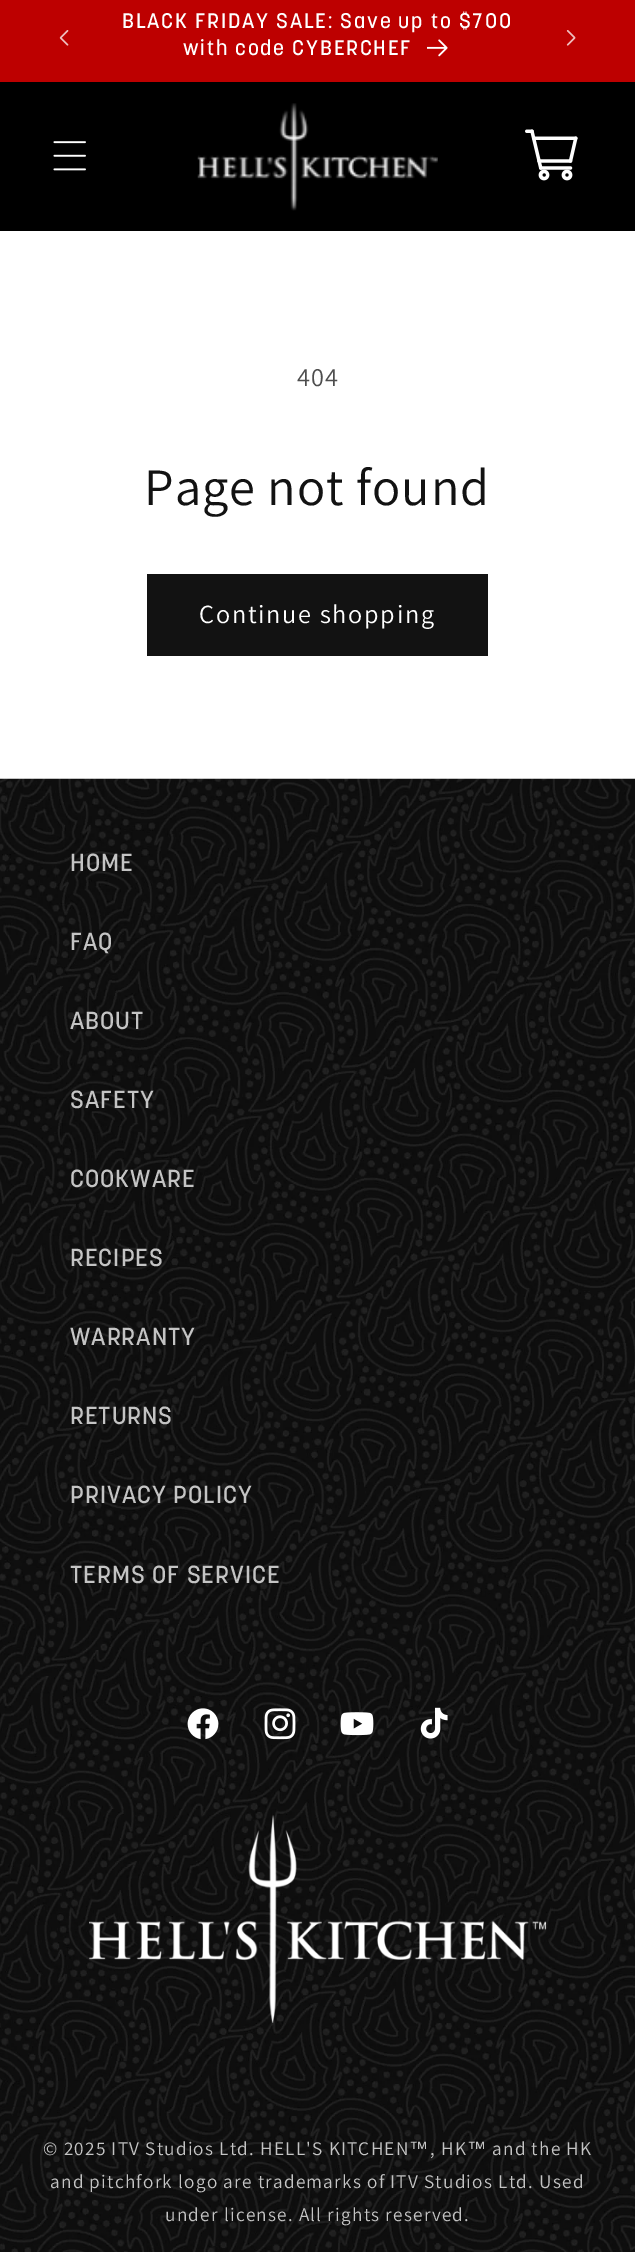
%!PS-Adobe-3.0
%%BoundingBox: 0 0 635 2252
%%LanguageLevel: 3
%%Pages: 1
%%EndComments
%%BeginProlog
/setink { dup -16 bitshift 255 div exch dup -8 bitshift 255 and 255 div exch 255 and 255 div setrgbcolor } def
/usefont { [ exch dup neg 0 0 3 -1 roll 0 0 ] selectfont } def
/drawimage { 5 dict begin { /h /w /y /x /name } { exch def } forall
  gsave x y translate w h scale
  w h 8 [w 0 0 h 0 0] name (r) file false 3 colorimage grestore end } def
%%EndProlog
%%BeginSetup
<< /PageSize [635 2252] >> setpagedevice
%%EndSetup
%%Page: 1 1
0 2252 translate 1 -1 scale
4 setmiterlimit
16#FFFFFF setink
0 0 635 2252 rectfill
16#BD0000 setink
0 0 635 82 rectfill
(img1.raw) 59 30 10 16 drawimage
/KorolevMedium-Medium 21 usefont
16#FFFFFF setink
122 28 moveto 1.75 0 (BLACK FRIDAY SALE: Save up to $700) ashow
183 55 moveto 1.75 0 (with code CYBERCHEF) ashow
(img2.raw) 427 39 21 18 drawimage
(img3.raw) 566 30 10 16 drawimage
16#000000 setink
0 82 635 149 rectfill
(img4.raw) 53 141 33 30 drawimage
(img5.raw) 197 103 241 108 drawimage
(img6.raw) 525 129 53 52 drawimage
/Assistant-Regular 26.25 usefont
16#4D4D4D setink
297 386 moveto 1 0 (404) ashow
/Assistant-Regular 52.5 usefont
16#121212 setink
144 505 moveto 1 0 (Page not found) ashow
147 574 341 82 rectfill
/Assistant-Regular 26.25 usefont
16#FFFFFF setink
199 623 moveto 1.75 0 (Continue shopping) ashow
(img7.raw) 0 778 635 1474 drawimage
/KorolevMedium-Medium 24.5 usefont
16#C4C4C4 setink
70 871 moveto 1 0 (HOME) ashow
70 950 moveto 1 0 (FAQ) ashow
70 1029 moveto 1 0 (ABOUT) ashow
70 1108 moveto 1 0 (SAFETY) ashow
70 1187 moveto 1 0 (COOKWARE) ashow
70 1266 moveto 1 0 (RECIPES) ashow
70 1345 moveto 1 0 (WARRANTY) ashow
70 1424 moveto 1 0 (RETURNS) ashow
70 1503 moveto 1 0 (PRIVACY POLICY) ashow
70 1583 moveto 1 0 (TERMS OF SERVICE) ashow
(img8.raw) 187 1708 32 32 drawimage
(img9.raw) 264 1708 32 32 drawimage
(img10.raw) 340 1712 34 24 drawimage
(img11.raw) 420 1707 28 32 drawimage
(img12.raw) 89 1815 457 208 drawimage
/Assistant-Regular 19.25 usefont
43 2155 moveto 1.22 0 (© 2025 ITV Studios Ltd. HELL'S KITCHEN) ashow
/LiberationSans-Regular 19.25 usefont
409 2155 moveto 1.22 0 (™) ashow
/Assistant-Regular 19.25 usefont
430 2155 moveto 1.22 0 (, HK) ashow
/LiberationSans-Regular 19.25 usefont
467 2155 moveto 1.22 0 (™) ashow
/Assistant-Regular 19.25 usefont
492 2155 moveto 1.22 0 (and the HK) ashow
50 2188 moveto 1.22 0 (and pitchfork logo are trademarks of ITV Studios Ltd. Used) ashow
165 2221 moveto 1.22 0 (under license. All rights reserved.) ashow
showpage
%%EOF
